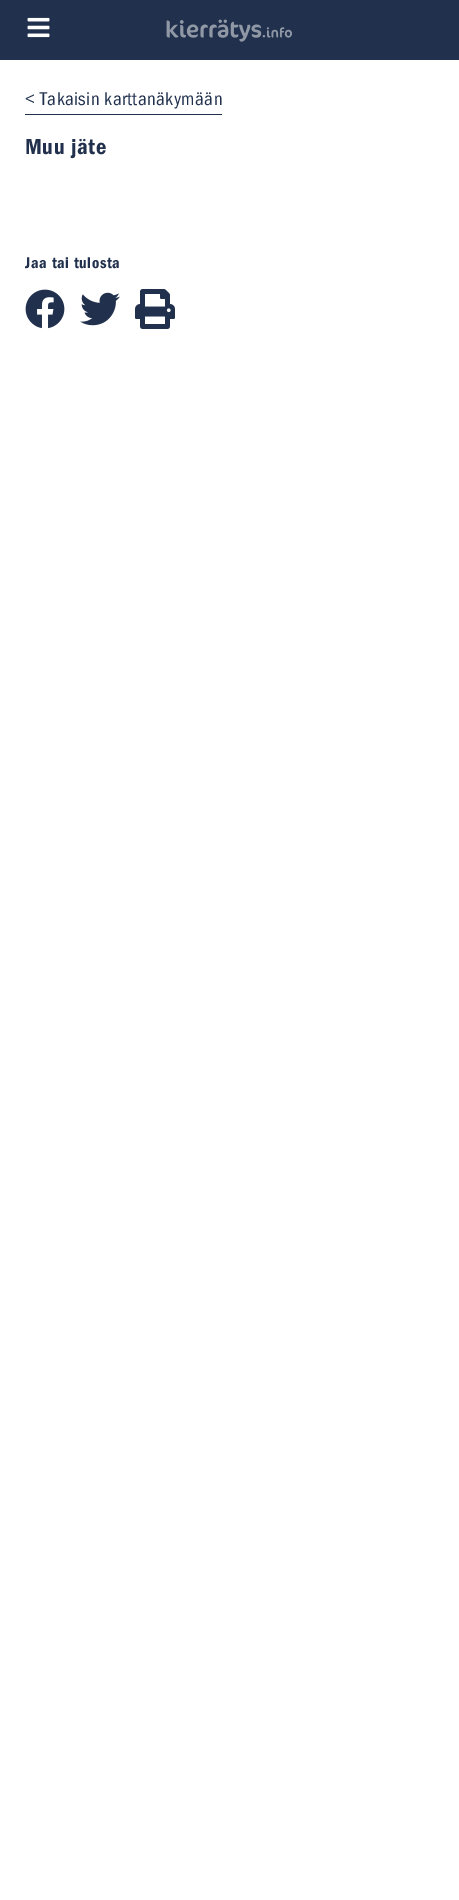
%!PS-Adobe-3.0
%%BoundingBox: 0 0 459 1900
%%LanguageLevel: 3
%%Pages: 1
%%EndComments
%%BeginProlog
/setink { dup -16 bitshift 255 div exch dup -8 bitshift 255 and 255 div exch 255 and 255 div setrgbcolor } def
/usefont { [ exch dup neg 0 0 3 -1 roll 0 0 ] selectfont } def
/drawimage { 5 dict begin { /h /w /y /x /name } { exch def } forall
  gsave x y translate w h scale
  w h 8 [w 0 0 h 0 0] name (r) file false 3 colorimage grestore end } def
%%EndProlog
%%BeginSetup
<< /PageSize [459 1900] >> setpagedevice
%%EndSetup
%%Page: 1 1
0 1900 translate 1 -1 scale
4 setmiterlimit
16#FFFFFF setink
0 0 459 1900 rectfill
16#21314D setink
0 0 459 60 rectfill
(img1.raw) 27 17 23 21 drawimage
(img2.raw) 166 19 126 23 drawimage
25 114 197 1 rectfill
/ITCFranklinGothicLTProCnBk-Regular 19 usefont
25 105 moveto 0.5 0 (<) ashow
40 105 moveto -1 0 32 0.5 0 (Takaisin karttanäkymään) awidthshow
/ITCFranklinGothicLTProCnBk-SemiBold 22.5 usefont
25 154 moveto 0.5 0 (Muu jäte) ashow
/ITCFranklinGothicLTProCnBk-SemiBold 16 usefont
25 268 moveto 0.5 0 (Jaa tai tulosta) ashow
(img3.raw) 25 289 40 40 drawimage
(img4.raw) 80 292 40 34 drawimage
(img5.raw) 135 289 40 40 drawimage
showpage
%%EOF
